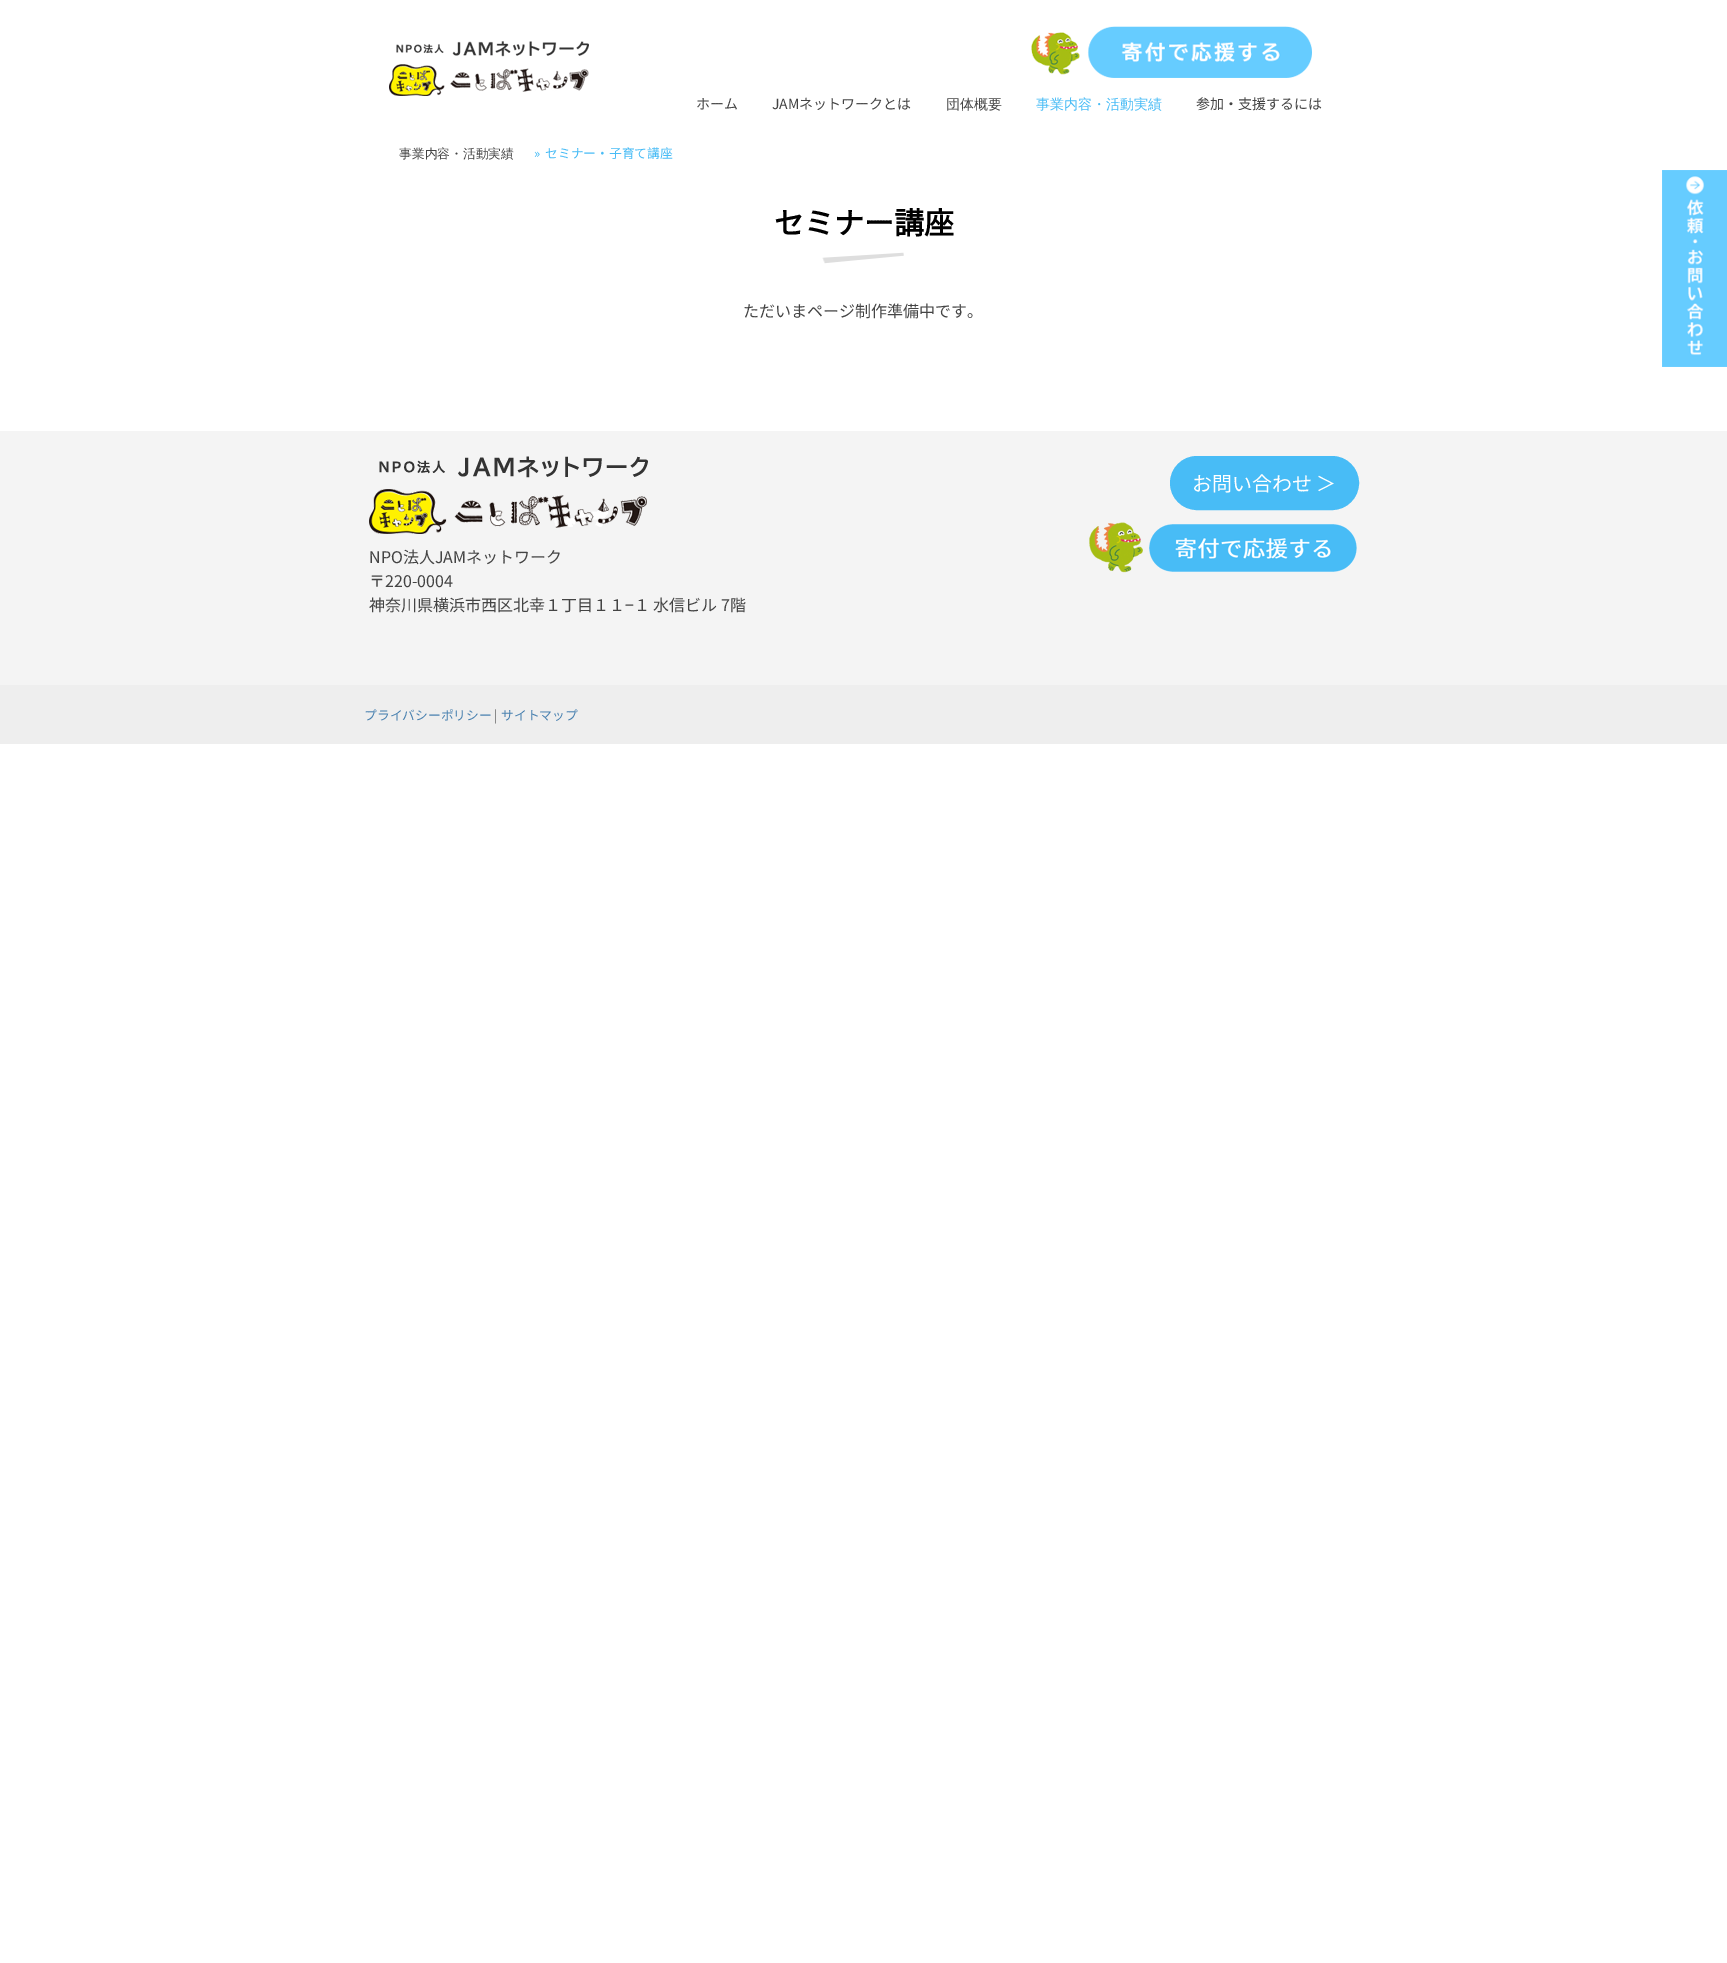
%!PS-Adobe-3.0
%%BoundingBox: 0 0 1727 1963
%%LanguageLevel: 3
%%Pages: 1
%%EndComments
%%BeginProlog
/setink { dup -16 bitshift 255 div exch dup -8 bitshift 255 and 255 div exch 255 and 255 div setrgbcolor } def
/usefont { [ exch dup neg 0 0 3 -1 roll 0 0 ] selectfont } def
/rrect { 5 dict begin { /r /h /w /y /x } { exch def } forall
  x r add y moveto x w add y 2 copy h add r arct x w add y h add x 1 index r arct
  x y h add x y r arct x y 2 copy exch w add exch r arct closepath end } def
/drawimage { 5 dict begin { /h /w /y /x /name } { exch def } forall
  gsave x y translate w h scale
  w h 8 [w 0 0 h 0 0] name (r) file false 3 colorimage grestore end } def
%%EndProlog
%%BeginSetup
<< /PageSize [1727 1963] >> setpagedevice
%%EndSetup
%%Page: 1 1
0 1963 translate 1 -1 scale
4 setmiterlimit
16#FFFFFF setink
0 0 1727 1963 rectfill
(img1.raw) 389 41 200 55 drawimage
(img2.raw) 1031 26 281 52 drawimage
/NotoSansHK-Thin 14 usefont
16#444444 setink
696 109 moveto (ホーム) show
772 109 moveto (JAMネットワークとは) show
/WenQuanYiZenHei-Medium 14 usefont
946 109 moveto (団体概要) show
16#48BCF6 setink
1036 109 moveto (事業内容・活動実績) show
/NotoSansHK-Thin 14 usefont
16#444444 setink
1196 109 moveto (参加・支援するには) show
/WenQuanYiZenHei-Medium 12.75 usefont
399 158 moveto (事業内容・活動実績) show
/NotoSansHK-Thin 12.75 usefont
16#48BCF6 setink
534 158 moveto (») show
545 158 moveto (セミナー・子育て講座) show
(img3.raw) 822 252 82 12 drawimage
/NotoSansJP-Bold 30 usefont
16#000000 setink
774 234 moveto (セミナー講座) show
/NotoSansJP-Thin 16 usefont
16#444444 setink
743 317 moveto (ただいまページ制作準備中です。) show
16#F4F4F4 setink
0 431 1727 254 rectfill
(img4.raw) 1662 170 65 197 drawimage
16#48BCF6 setink
1171 457 187 52 26 rrect gsave fill grestore
2 setlinewidth
stroke
/NotoSansJP-Thin 20 usefont
16#FFFFFF setink
1192 491 moveto (お問い合わせ ＞) show
(img5.raw) 1089 522 268 51 drawimage
(img6.raw) 369 456 279 78 drawimage
/NotoSansJP-Thin 16 usefont
16#444444 setink
[
    [(NPO法人JAMネットワーク) 369 563]
    [(〒220-0004) 369 587]
    [(神奈川県横浜市西区北幸１丁目１１−１ 水信ビル 7階) 369 611]
] { aload pop moveto show } forall
16#EEEEEE setink
0 685 1727 59 rectfill
/NotoSansJP-Thin 12.75 usefont
16#4981B0 setink
364 720 moveto (プライバシーポリシー) show
16#666666 setink
494 720 moveto (|) show
16#4981B0 setink
501 720 moveto (サイトマップ) show
showpage
%%EOF
